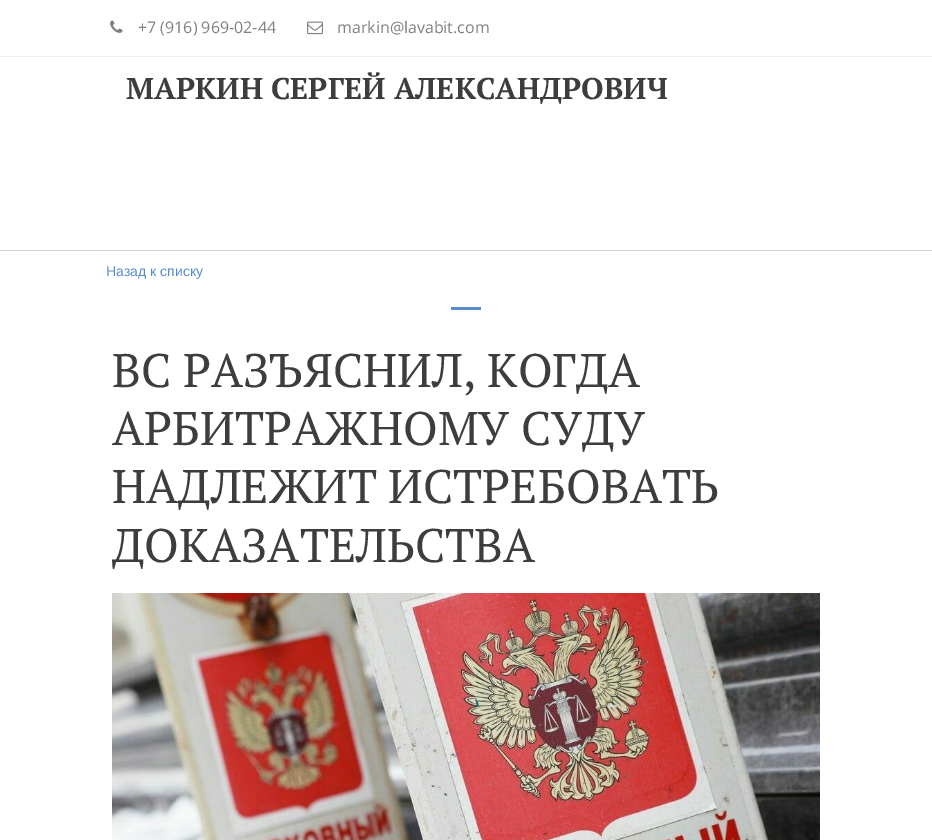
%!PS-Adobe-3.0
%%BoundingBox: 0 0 932 840
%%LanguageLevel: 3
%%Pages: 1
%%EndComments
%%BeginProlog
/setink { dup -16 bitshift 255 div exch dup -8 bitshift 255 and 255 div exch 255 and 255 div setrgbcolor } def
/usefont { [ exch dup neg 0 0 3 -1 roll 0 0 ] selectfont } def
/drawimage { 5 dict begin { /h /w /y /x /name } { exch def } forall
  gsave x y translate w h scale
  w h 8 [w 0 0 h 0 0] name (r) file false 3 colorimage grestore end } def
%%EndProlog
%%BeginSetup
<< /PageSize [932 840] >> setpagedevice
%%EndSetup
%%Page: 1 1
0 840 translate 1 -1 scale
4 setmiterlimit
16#FFFFFF setink
0 0 932 840 rectfill
16#D1D2D4 setink
0 250 932 1 rectfill
16#EFEFEF setink
0 56 932 1 rectfill
(img1.raw) 110 20 13 13 drawimage
/OpenSans-Regular 16 usefont
16#808080 setink
138 33 moveto (+7 \(916\) 969-02-44) show
(img2.raw) 307 21 16 14 drawimage
337 33 moveto (markin@lavabit.com) show
/PTSerif-Bold 30 usefont
16#3D3D3D setink
126 99 moveto (МАРКИН СЕРГЕЙ АЛЕКСАНДРОВИЧ) show
/LiberationSans-Regular 14 usefont
16#578CCD setink
106 276 moveto (Назад к списку) show
451 307 30 3 rectfill
/PTSerif-Regular 47 usefont
16#3D3D3D setink
[
    [(ВС РАЗЪЯСНИЛ, КОГДА) 112 387]
    [(АРБИТРАЖНОМУ СУДУ) 112 445]
    [(НАДЛЕЖИТ ИСТРЕБОВАТЬ) 112 503]
    [(ДОКАЗАТЕЛЬСТВА) 112 562]
] { aload pop moveto show } forall
(img3.raw) 112 593 708 247 drawimage
showpage
%%EOF
